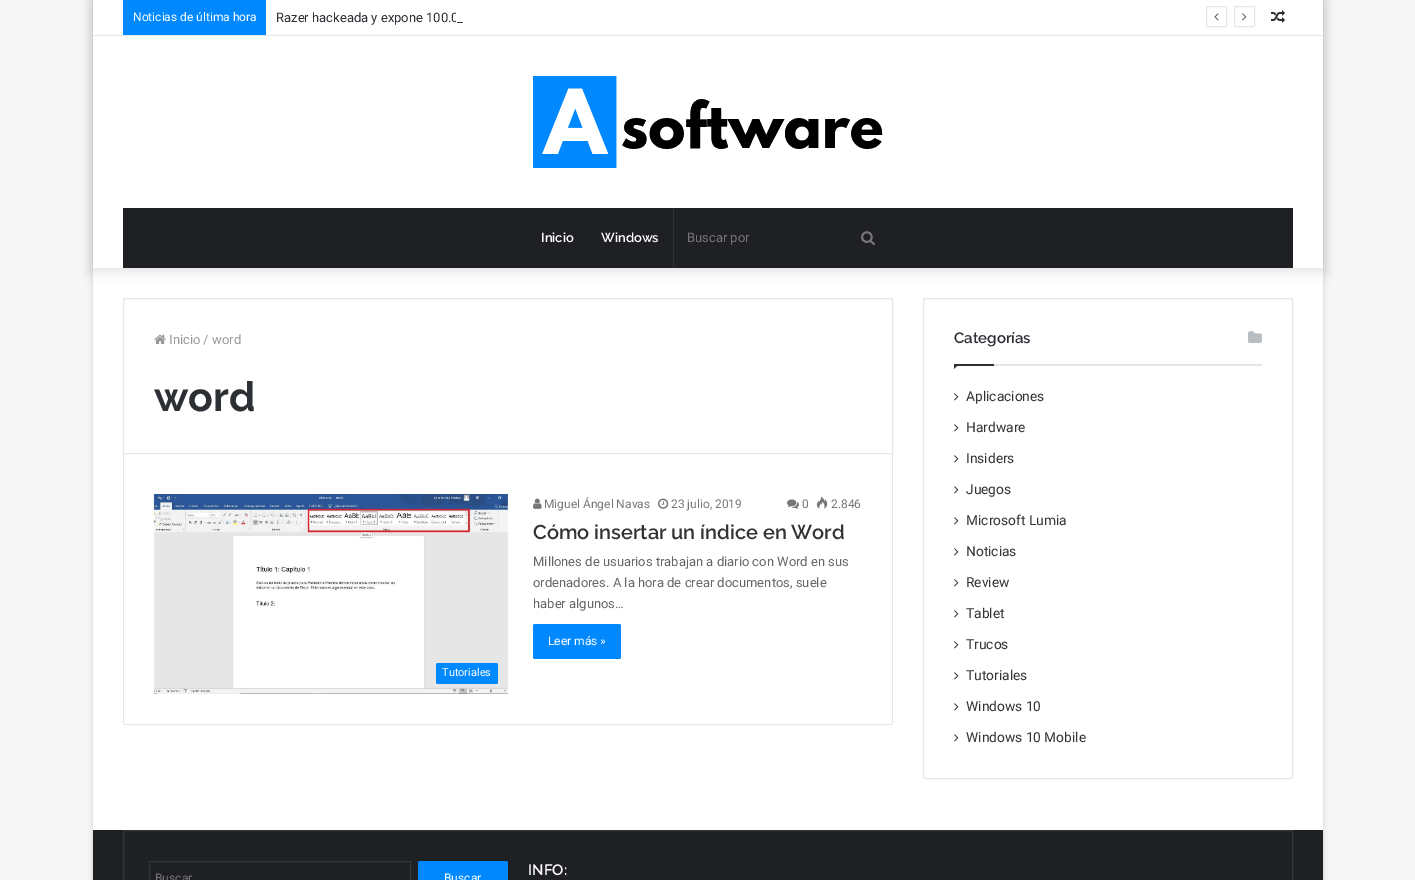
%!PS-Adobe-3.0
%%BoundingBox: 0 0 1415 880
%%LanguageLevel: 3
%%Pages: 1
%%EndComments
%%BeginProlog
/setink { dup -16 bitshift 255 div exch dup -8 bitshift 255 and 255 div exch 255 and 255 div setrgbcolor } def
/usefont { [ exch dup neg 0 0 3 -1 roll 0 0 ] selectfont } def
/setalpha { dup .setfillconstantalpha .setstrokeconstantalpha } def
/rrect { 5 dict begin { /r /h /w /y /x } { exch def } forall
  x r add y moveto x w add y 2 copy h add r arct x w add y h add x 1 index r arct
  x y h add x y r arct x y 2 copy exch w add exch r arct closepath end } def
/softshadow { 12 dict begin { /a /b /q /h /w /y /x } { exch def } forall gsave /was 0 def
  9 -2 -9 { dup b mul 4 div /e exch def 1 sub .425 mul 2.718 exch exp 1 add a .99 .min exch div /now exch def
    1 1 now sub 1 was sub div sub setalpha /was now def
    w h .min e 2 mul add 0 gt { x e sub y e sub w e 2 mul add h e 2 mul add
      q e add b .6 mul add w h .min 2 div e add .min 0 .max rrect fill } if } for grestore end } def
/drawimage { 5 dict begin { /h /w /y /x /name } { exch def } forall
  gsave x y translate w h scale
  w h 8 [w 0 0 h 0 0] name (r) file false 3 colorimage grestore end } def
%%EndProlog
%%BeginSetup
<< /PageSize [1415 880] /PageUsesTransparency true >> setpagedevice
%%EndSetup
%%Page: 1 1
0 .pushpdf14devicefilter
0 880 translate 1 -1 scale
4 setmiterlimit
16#F7F7F7 setink
0 0 1415 880 rectfill
16#ABABAB setink
93 1 1230 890 0 3.5 0.5 softshadow
16#FFFFFF setink
93 0 1230 830 rectfill
gsave
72 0 moveto 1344 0 lineto 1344 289 lineto 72 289 lineto closepath 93 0 moveto 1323 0 lineto 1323 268 lineto 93 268 lineto closepath eoclip newpath
16#000000 setink
88 -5 1240 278 0 5 0.1 softshadow
grestore
16#E6E6E6 setink
93 35 1230 1 rectfill
16#0088FF setink
123 0 143 35 rectfill
/Roboto-Regular 12 usefont
16#FFFFFF setink
133 21 moveto (Noticias de última hora) show
/Roboto-Regular 13 usefont
16#2C2F34 setink
276 22 moveto (Razer hackeada y expone 100.0) show
16#FFFFFF setink
456 12 3 10 rectfill
16#2C2F34 setink
457 22 moveto (_) show
16#E6E6E6 setink
1206.5 6.5 20 20 1.5 rrect stroke
(img1.raw) 1214 13 5 8 drawimage
1234.5 6.5 20 20 1.5 rrect stroke
(img2.raw) 1242 13 5 8 drawimage
(img3.raw) 1271 10 14 13 drawimage
(img4.raw) 533 76 350 92 drawimage
16#1F2024 setink
123 208 1170 60 rectfill
/Raleway-SemiBold 13 usefont
16#FFFFFF setink
541 242 moveto (Inicio) show
601 242 moveto (Windows) show
16#2F3033 setink
673 208 1 60 rectfill
/Roboto-Regular 13 usefont
16#767676 setink
687 242 moveto (Buscar por) show
(img5.raw) 861 231 14 15 drawimage
16#E6E6E6 setink
125 298.5 moveto 891 298.5 lineto 892 298.5 892.5 299 892.5 300 curveto 892.5 453.5 lineto 123.5 453.5 lineto 123.5 300 lineto 123.5 299 124 298.5 125 298.5 curveto closepath stroke
(img6.raw) 154 334 12 10 drawimage
16#999999 setink
169 344 moveto (Inicio / word) show
/Raleway-Bold 41 usefont
16#2C2F34 setink
154 411 moveto (word) show
[
    [892 454 1 270 16#E6E6E6]
    [124 724 768 1 16#E6E6E6]
    [123 454 1 270 16#E6E6E6]
] { aload pop setink rectfill } forall
(img7.raw) 533 498 9 11 drawimage
/Roboto-Regular 12 usefont
16#767676 setink
544 508 moveto (Miguel Ángel Navas) show
(img8.raw) 658 498 11 11 drawimage
671 508 moveto (23 julio, 2019) show
(img9.raw) 787 499 12 10 drawimage
802 508 moveto (0) show
(img10.raw) 816 496 12 13 drawimage
831 508 moveto (2.846) show
/Raleway-SemiBold 20 usefont
16#333333 setink
533 539 moveto (Cómo insertar un índice en Word) show
/Roboto-Regular 13 usefont
16#666666 setink
[
    [(Millones de usuarios trabajan a diario con Word en sus) 533 566]
    [(ordenadores. A la hora de crear documentos, suele) 533 587]
    [(haber algunos…) 533 608]
] { aload pop moveto show } forall
16#0088FF setink
533 624 88 35 2 rrect fill
/Roboto-Regular 12 usefont
16#FFFFFF setink
548 645 moveto (Leer más ») show
(img11.raw) 153 494 355 200 drawimage
16#0088FF setink
436 663 62 21 2 rrect fill
/Roboto-Regular 11 usefont
16#FFFFFF setink
442 676 moveto (Tutoriales) show
16#E6E6E6 setink
923.5 298.5 369 480 1.5 rrect stroke
994 364 268 2 rectfill
/Raleway-SemiBold 15 usefont
16#2C2F34 setink
954 343 moveto (Categorías) show
(img12.raw) 1248 331 14 12 drawimage
954 364 moveto 959 364 lineto 954 369 lineto closepath fill
954 364 40 2 rectfill
(img13.raw) 954 393 5 8 drawimage
/Roboto-Regular 13.75 usefont
16#333333 setink
966 401 moveto (Aplicaciones) show
(img13.raw) 954 424 5 8 drawimage
966 432 moveto (Hardware) show
(img13.raw) 954 455 5 8 drawimage
966 463 moveto (Insiders) show
(img13.raw) 954 486 5 8 drawimage
966 494 moveto (Juegos) show
(img13.raw) 954 517 5 8 drawimage
966 525 moveto (Microsoft Lumia) show
(img13.raw) 954 548 5 8 drawimage
966 556 moveto (Noticias) show
(img13.raw) 954 579 5 8 drawimage
966 587 moveto (Review) show
(img13.raw) 954 610 5 8 drawimage
966 618 moveto (Tablet) show
(img13.raw) 954 641 5 8 drawimage
966 649 moveto (Trucos) show
(img13.raw) 954 672 5 8 drawimage
966 680 moveto (Tutoriales) show
(img13.raw) 954 703 5 8 drawimage
966 711 moveto (Windows 10) show
(img13.raw) 954 734 5 8 drawimage
966 742 moveto (Windows 10 Mobile) show
16#1F2024 setink
93 830 1230 50 rectfill
16#35363A setink
123.5 830.5 1169 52 1.5 rrect stroke
149.5 861.5 261 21 1.5 rrect stroke
/Roboto-Regular 12 usefont
16#767676 setink
155 882 moveto (Buscar) show
16#0088FF setink
418 861 90 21 2 rrect fill
16#FFFFFF setink
444 882 moveto (Buscar) show
/Raleway-SemiBold 15 usefont
528 875 moveto (INFO:) show
.poppdf14devicefilter showpage
%%EOF
